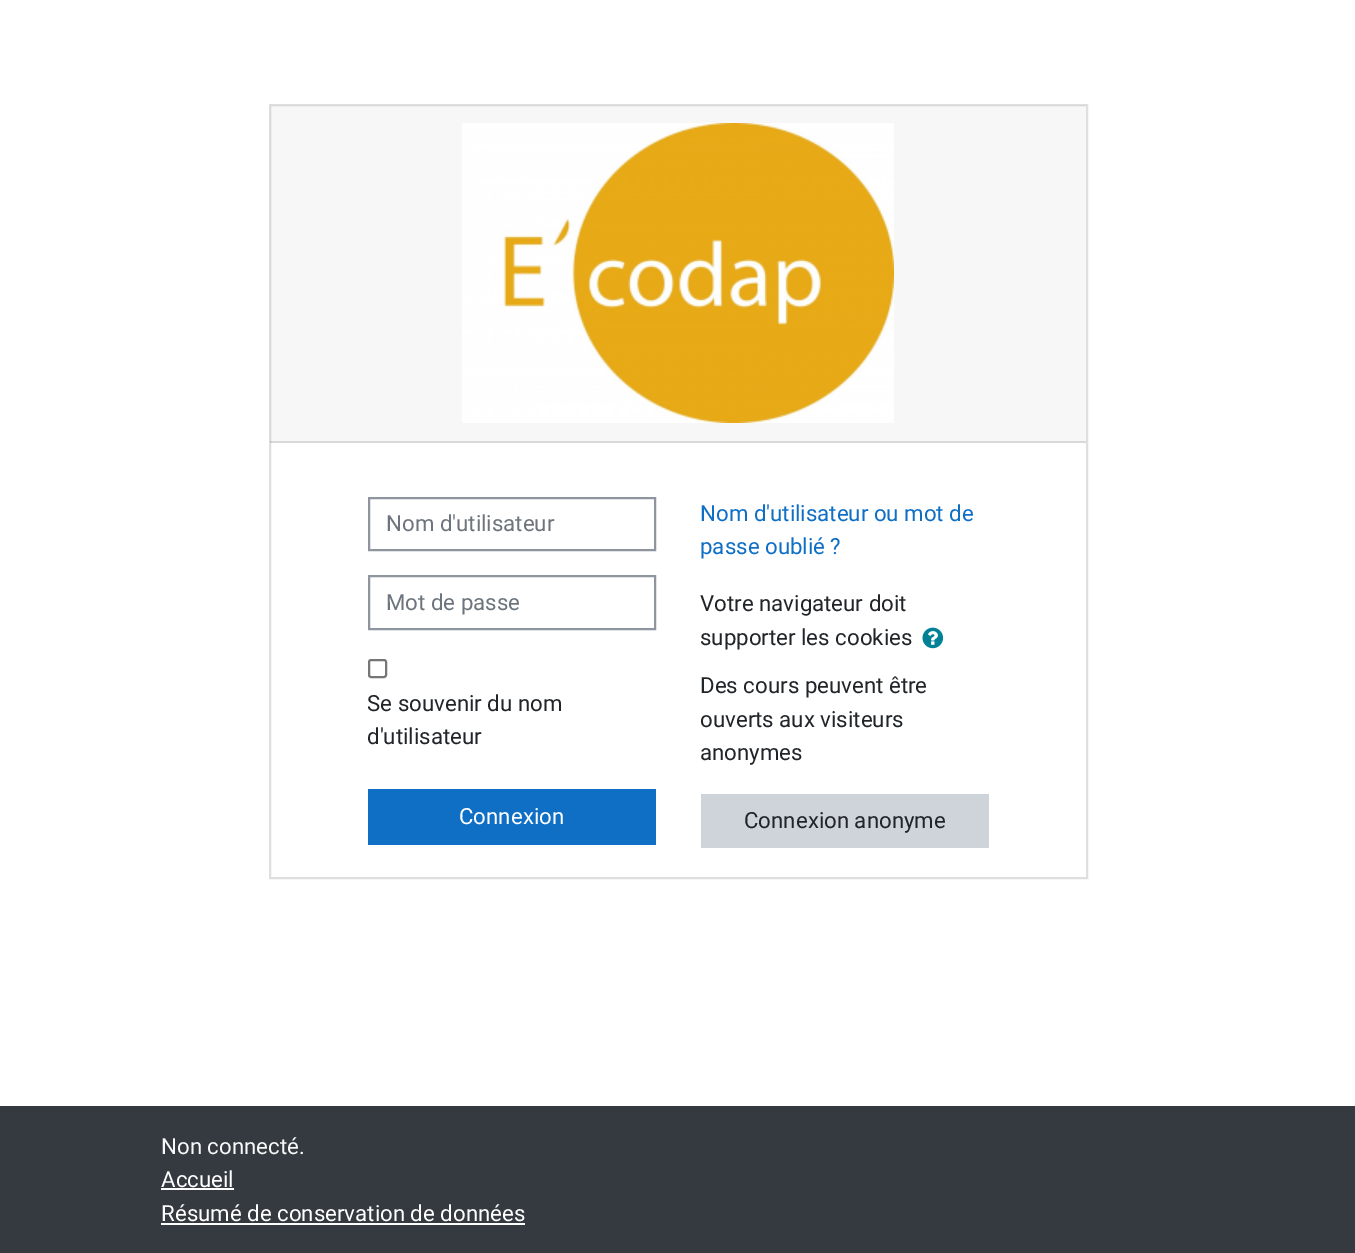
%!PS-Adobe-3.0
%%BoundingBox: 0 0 1355 1253
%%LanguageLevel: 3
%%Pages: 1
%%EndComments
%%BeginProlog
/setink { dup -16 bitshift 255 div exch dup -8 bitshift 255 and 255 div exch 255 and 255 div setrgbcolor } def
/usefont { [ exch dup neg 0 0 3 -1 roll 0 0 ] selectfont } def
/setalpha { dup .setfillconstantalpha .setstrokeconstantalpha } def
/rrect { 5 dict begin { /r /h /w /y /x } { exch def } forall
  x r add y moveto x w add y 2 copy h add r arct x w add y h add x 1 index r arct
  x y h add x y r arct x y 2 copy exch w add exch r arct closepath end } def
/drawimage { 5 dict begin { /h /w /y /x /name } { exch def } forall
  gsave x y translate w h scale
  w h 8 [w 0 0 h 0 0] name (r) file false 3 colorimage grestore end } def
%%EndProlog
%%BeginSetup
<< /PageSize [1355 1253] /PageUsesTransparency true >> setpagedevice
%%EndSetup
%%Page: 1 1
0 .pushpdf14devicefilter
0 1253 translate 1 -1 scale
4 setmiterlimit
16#FFFFFF setink
0 0 1355 1253 rectfill
16#DFDFDF setink
2 setlinewidth
270 105 817 773 rectstroke
0.03 setalpha
16#000000 setink
270 105 816 338 rectfill
0.12 setalpha
270 441 816 2 rectfill
1 setalpha
(img1.raw) 462 123 432 300 drawimage
16#8F959E setink
369 498 286 52 rectstroke
/Roboto-Regular 22.25 usefont
16#6C757D setink
386 531 moveto (Nom d'utilisateur) show
16#8F959E setink
369 576 286 53 rectstroke
16#6C757D setink
386 610 moveto (Mot de passe) show
16#767676 setink
369 660 17 17 2 rrect stroke
16#212529 setink
367 711 moveto (Se souvenir du nom) show
367 744 moveto (d'utilisateur) show
16#0F6FC5 setink
368 789 288 56 rectfill
16#FFFFFF setink
459 824 moveto (Connexion) show
16#0F6FC5 setink
700 521 moveto (Nom d'utilisateur ou mot de) show
700 554 moveto (passe oublié ?) show
16#212529 setink
700 611 moveto (Votre navigateur doit) show
700 645 moveto (supporter les cookies) show
(img2.raw) 922 627 22 22 drawimage
[
    [(Des cours peuvent être) 700 693]
    [(ouverts aux visiteurs) 700 727]
    [(anonymes) 700 760]
] { aload pop moveto show } forall
16#CED4DA setink
701 794 288 54 rectfill
16#212529 setink
744 828 moveto (Connexion anonyme) show
16#343A40 setink
0 1106 1355 147 rectfill
16#F8F9FA setink
161 1154 moveto (Non connecté.) show
16#FFFFFF setink
161 1187 moveto (Accueil) show
161 1188 73 2 rectfill
161 1221 moveto (Résumé de conservation de données) show
161 1223 364 2 rectfill
.poppdf14devicefilter showpage
%%EOF
